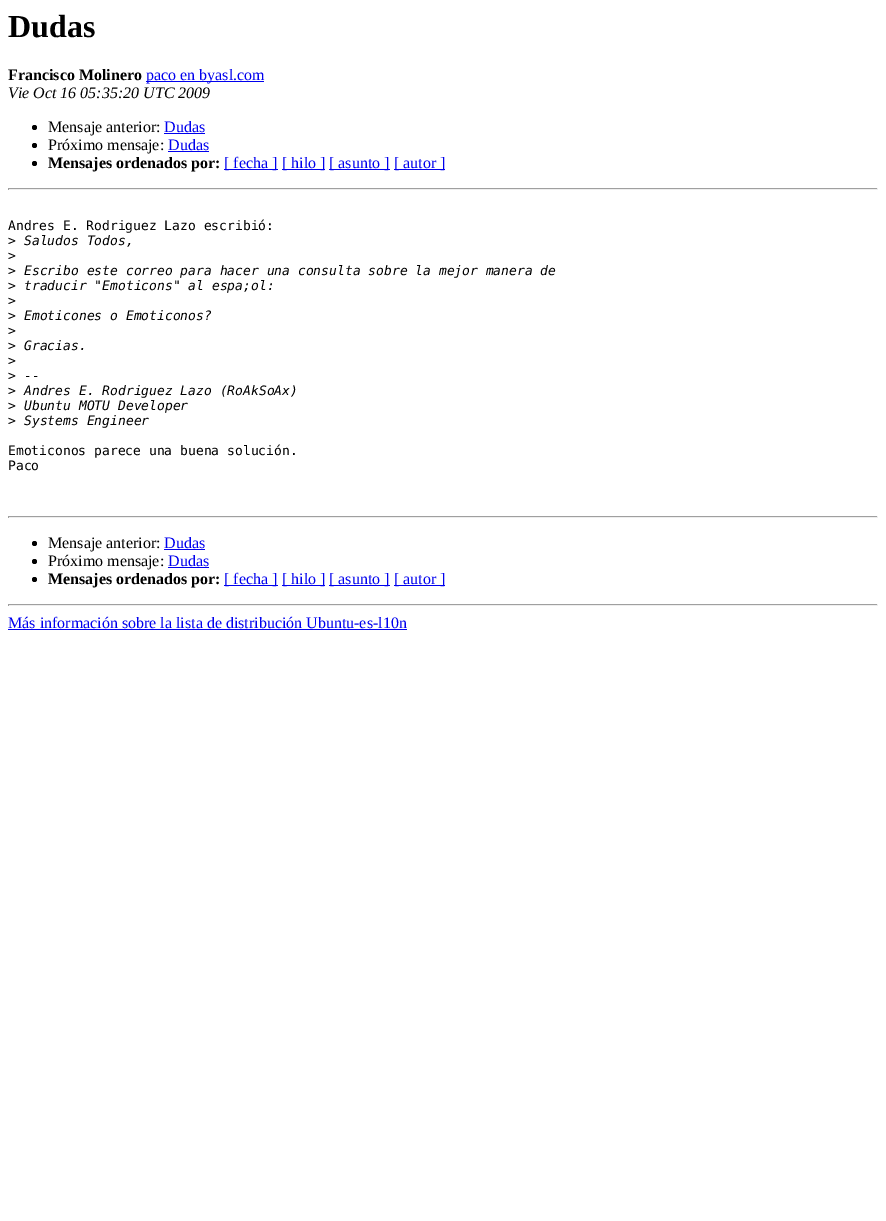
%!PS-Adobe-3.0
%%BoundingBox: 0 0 886 1221
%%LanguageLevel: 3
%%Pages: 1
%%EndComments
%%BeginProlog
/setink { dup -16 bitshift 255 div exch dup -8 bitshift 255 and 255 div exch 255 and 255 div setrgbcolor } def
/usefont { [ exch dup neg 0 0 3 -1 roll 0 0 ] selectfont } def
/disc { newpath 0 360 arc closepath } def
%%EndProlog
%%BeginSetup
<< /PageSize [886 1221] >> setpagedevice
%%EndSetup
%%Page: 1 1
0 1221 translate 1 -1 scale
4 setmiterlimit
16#FFFFFF setink
0 0 886 1221 rectfill
/LiberationSerif-Bold 32 usefont
16#000000 setink
8 37 moveto (Dudas) show
/LiberationSerif-Bold 16 usefont
8 80 moveto (Francisco Molinero) show
16#0000EE setink
146 81 118 1 rectfill
/LiberationSerif-Regular 16 usefont
146 80 moveto (paco en byasl.com) show
/LiberationSerif-Italic 16 usefont
16#000000 setink
8 98 moveto (Vie Oct 16 05:35:20 UTC 2009) show
34.5 127.5 2.5 disc fill
/LiberationSerif-Regular 16 usefont
48 132 moveto (Mensaje anterior:) show
16#0000EE setink
164 132 moveto (Dudas) show
164 133 41 1 rectfill
16#000000 setink
34.5 145.5 2.5 disc fill
48 150 moveto (Próximo mensaje:) show
16#0000EE setink
168 150 moveto (Dudas) show
168 151 41 1 rectfill
16#000000 setink
34.5 163.5 2.5 disc fill
/LiberationSerif-Bold 16 usefont
48 168 moveto (Mensajes ordenados por:) show
16#0000EE setink
224 169 54 1 rectfill
/LiberationSerif-Regular 16 usefont
224 168 moveto ([ fecha ]) show
282 169 43 1 rectfill
282 168 moveto ([ hilo ]) show
329 169 61 1 rectfill
329 168 moveto ([ asunto ]) show
394 169 51 1 rectfill
394 168 moveto ([ autor ]) show
[
    [8 188 870 1 16#9F9F9F]
    [877 188 1 2 16#EEEEEE]
    [8 189 870 1 16#EEEEEE]
    [8 188 1 2 16#9F9F9F]
] { aload pop setink rectfill } forall
/DejaVuSansMono-Regular 13 usefont
16#000000 setink
8 230 moveto (Andres E. Rodriguez Lazo escribió:) show
8 245 moveto (>) show
/DejaVuSansMono-Italic 13 usefont
24 245 moveto (Saludos Todos,) show
/DejaVuSansMono-Regular 13 usefont
8 260 moveto (>) show
8 275 moveto (>) show
/DejaVuSansMono-Italic 13 usefont
24 275 moveto (Escribo este correo para hacer una consulta sobre la mejor manera de) show
/DejaVuSansMono-Regular 13 usefont
8 290 moveto (>) show
/DejaVuSansMono-Italic 13 usefont
24 290 moveto (traducir "Emoticons" al espa;ol:) show
/DejaVuSansMono-Regular 13 usefont
8 305 moveto (>) show
8 320 moveto (>) show
/DejaVuSansMono-Italic 13 usefont
24 320 moveto (Emoticones o Emoticonos?) show
/DejaVuSansMono-Regular 13 usefont
8 335 moveto (>) show
8 350 moveto (>) show
/DejaVuSansMono-Italic 13 usefont
24 350 moveto (Gracias.) show
/DejaVuSansMono-Regular 13 usefont
8 365 moveto (>) show
8 380 moveto (>) show
/DejaVuSansMono-Italic 13 usefont
24 380 moveto (--) show
/DejaVuSansMono-Regular 13 usefont
8 395 moveto (>) show
/DejaVuSansMono-Italic 13 usefont
24 395 moveto (Andres E. Rodriguez Lazo \(RoAkSoAx\)) show
/DejaVuSansMono-Regular 13 usefont
8 410 moveto (>) show
/DejaVuSansMono-Italic 13 usefont
24 410 moveto (Ubuntu MOTU Developer) show
/DejaVuSansMono-Regular 13 usefont
8 425 moveto (>) show
/DejaVuSansMono-Italic 13 usefont
24 425 moveto (Systems Engineer) show
/DejaVuSansMono-Regular 13 usefont
8 455 moveto (Emoticonos parece una buena solución.) show
8 470 moveto (Paco) show
[
    [8 516 870 1 16#9F9F9F]
    [877 516 1 2 16#EEEEEE]
    [8 517 870 1 16#EEEEEE]
    [8 516 1 2 16#9F9F9F]
] { aload pop setink rectfill } forall
16#000000 setink
34.5 543.5 2.5 disc fill
/LiberationSerif-Regular 16 usefont
48 548 moveto (Mensaje anterior:) show
16#0000EE setink
164 548 moveto (Dudas) show
164 549 41 1 rectfill
16#000000 setink
34.5 561.5 2.5 disc fill
48 566 moveto (Próximo mensaje:) show
16#0000EE setink
168 566 moveto (Dudas) show
168 567 41 1 rectfill
16#000000 setink
34.5 579.5 2.5 disc fill
/LiberationSerif-Bold 16 usefont
48 584 moveto (Mensajes ordenados por:) show
16#0000EE setink
224 585 54 1 rectfill
/LiberationSerif-Regular 16 usefont
224 584 moveto ([ fecha ]) show
282 585 43 1 rectfill
282 584 moveto ([ hilo ]) show
329 585 61 1 rectfill
329 584 moveto ([ asunto ]) show
394 585 51 1 rectfill
394 584 moveto ([ autor ]) show
[
    [8 604 870 1 16#9F9F9F]
    [877 604 1 2 16#EEEEEE]
    [8 605 870 1 16#EEEEEE]
    [8 604 1 2 16#9F9F9F]
] { aload pop setink rectfill } forall
16#0000EE setink
8 628 moveto (Más información sobre la lista de distribución Ubuntu-es-l10n) show
8 629 399 1 rectfill
showpage
%%EOF
